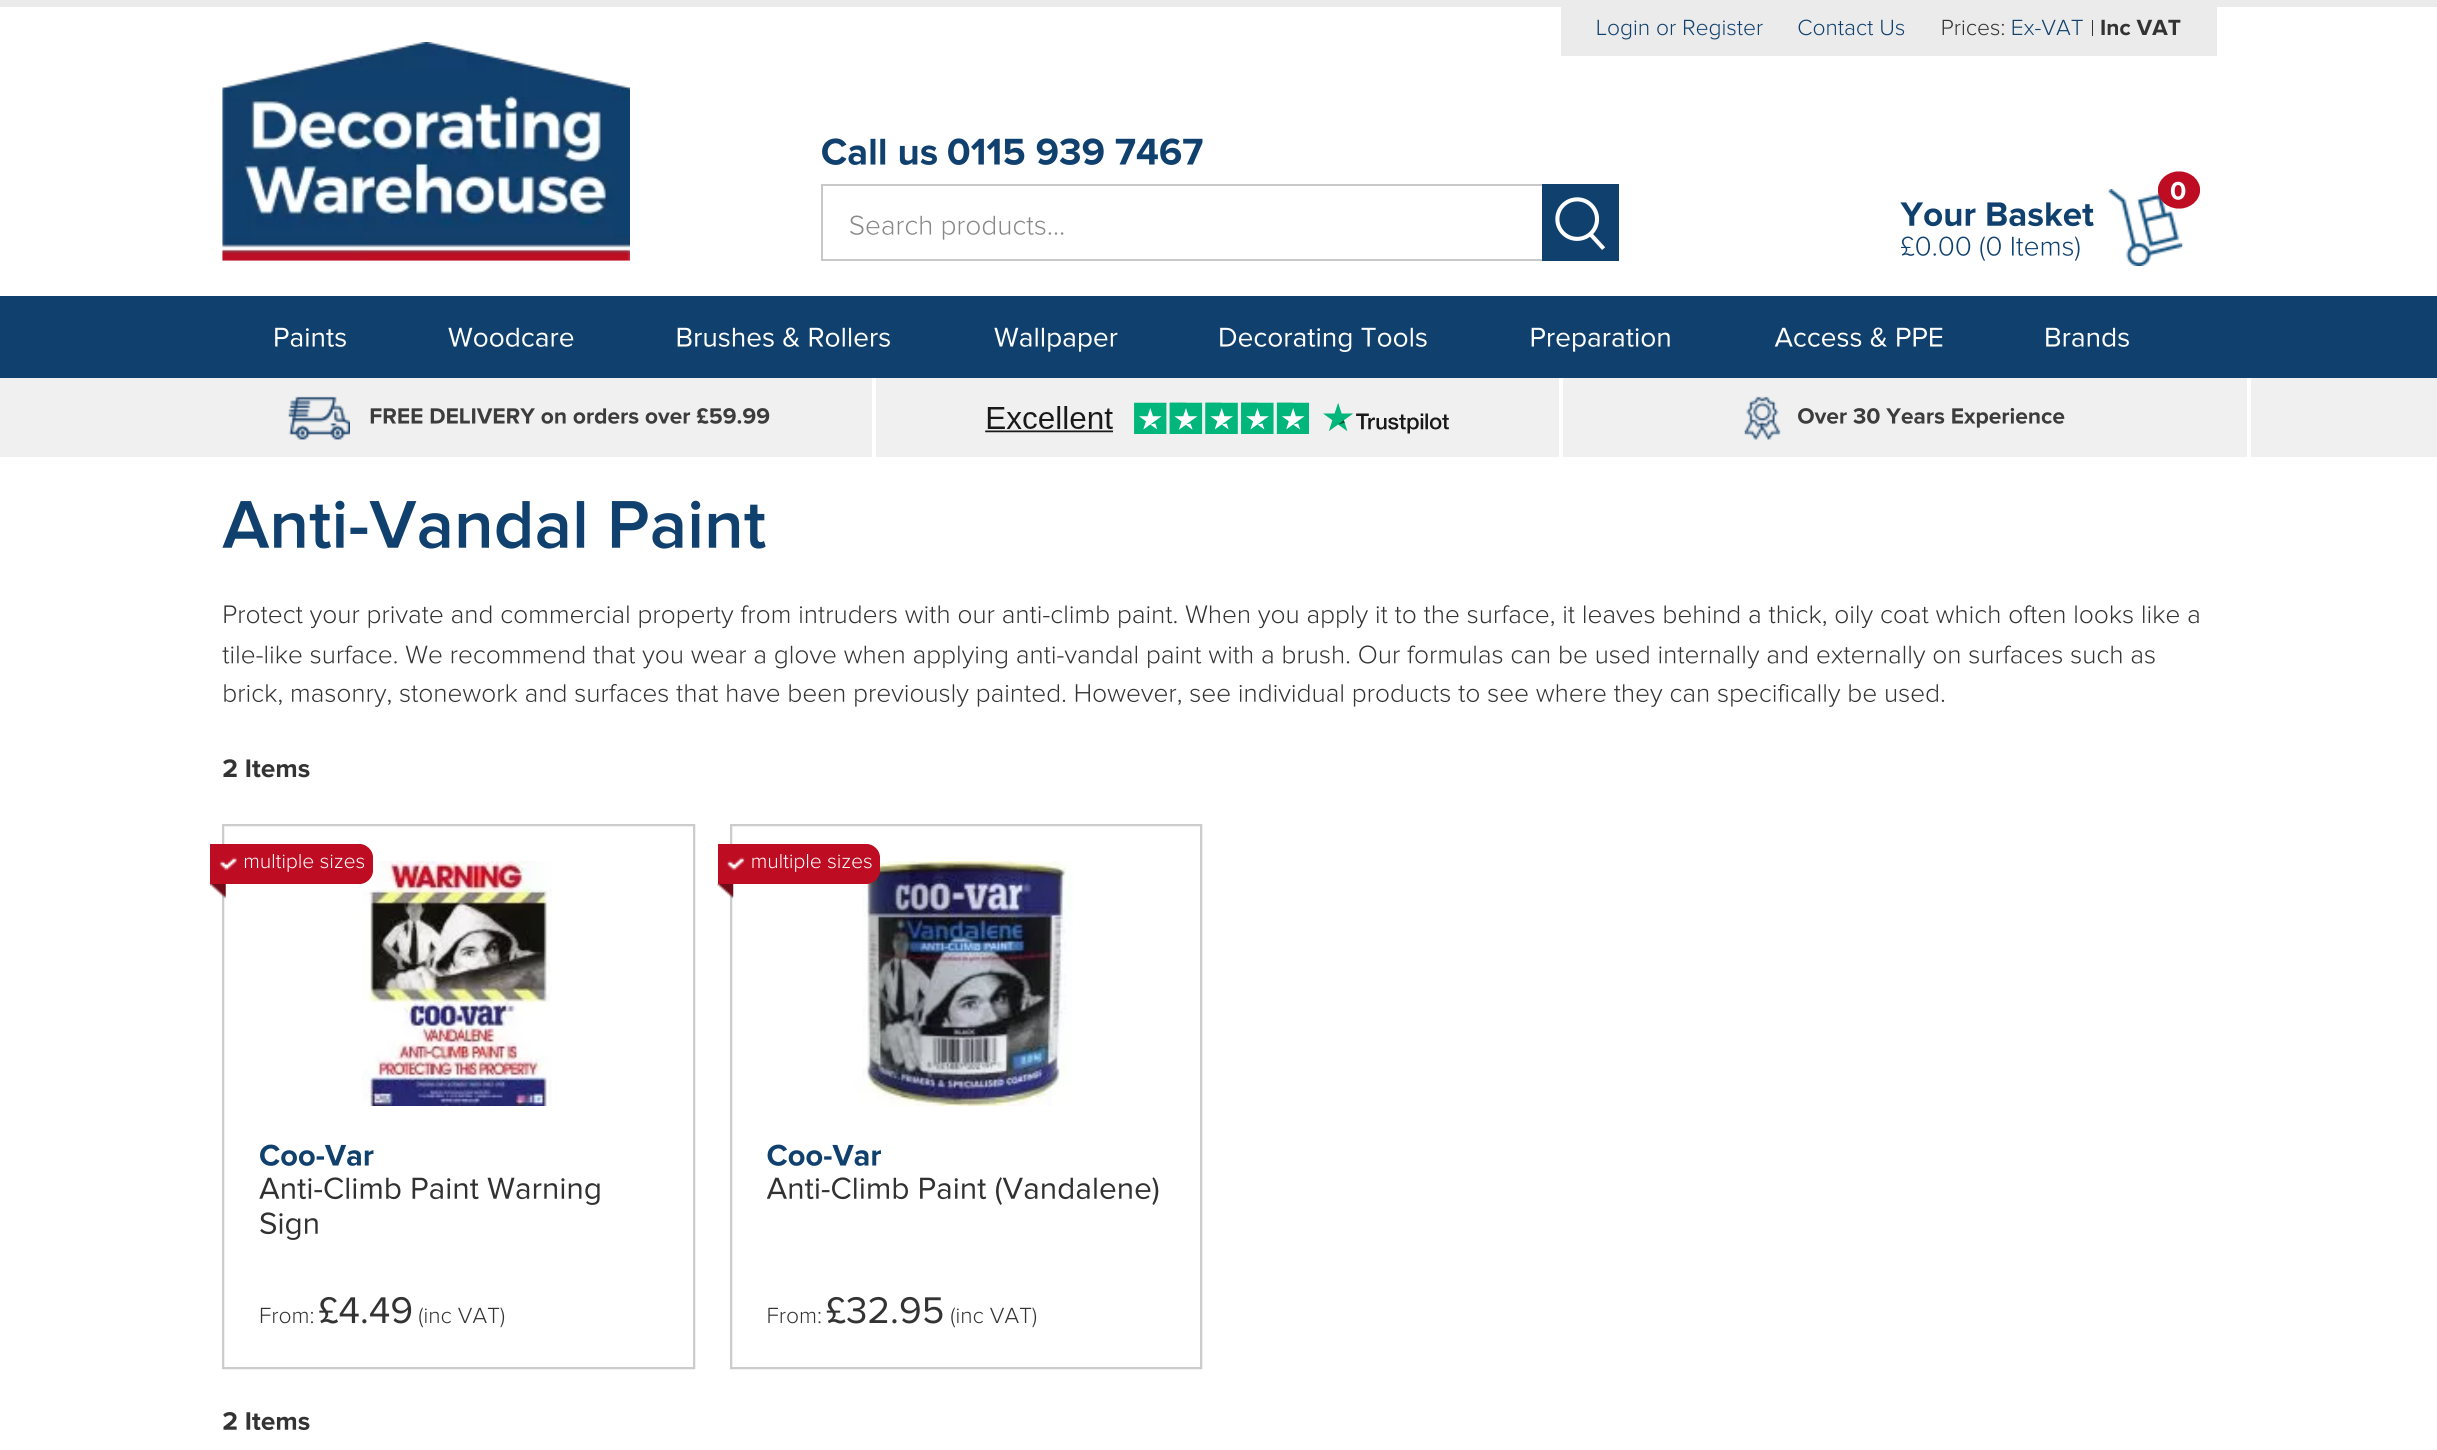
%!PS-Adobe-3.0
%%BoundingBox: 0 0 2437 1450
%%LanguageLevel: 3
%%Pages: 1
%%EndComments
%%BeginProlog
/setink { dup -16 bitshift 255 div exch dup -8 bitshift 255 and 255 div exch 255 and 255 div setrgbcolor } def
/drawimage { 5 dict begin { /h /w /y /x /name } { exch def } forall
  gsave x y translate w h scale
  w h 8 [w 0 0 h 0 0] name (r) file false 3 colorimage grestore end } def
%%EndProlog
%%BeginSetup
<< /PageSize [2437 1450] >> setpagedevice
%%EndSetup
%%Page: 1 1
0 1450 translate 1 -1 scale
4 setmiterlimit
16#FFFFFF setink
0 0 2437 1450 rectfill
16#EBEBEB setink
0 0 2437 7 rectfill
1561 7 656 49 rectfill
(img1.raw) 1597 19 166 21 drawimage
(img2.raw) 1798 19 107 17 drawimage
(img3.raw) 1942 19 62 17 drawimage
(img4.raw) 2012 19 71 16 drawimage
16#333333 setink
2092 20 1 16 rectfill
(img5.raw) 2101 19 80 17 drawimage
(img6.raw) 222 42 408 219 drawimage
(img7.raw) 822 138 115 27 drawimage
(img8.raw) 948 138 255 27 drawimage
[
    [821 184 721 2 16#C8C8C8]
    [821 259 721 2 16#C8C8C8]
    [821 184 2 77 16#C8C8C8]
] { aload pop setink rectfill } forall
(img9.raw) 850 215 214 25 drawimage
16#10406D setink
1542 184 77 77 rectfill
(img10.raw) 1555 197 51 53 drawimage
(img14.raw) 2108 189 75 77 drawimage
16#BE0D23 setink
2179 171.5 moveto 2190.5 171.5 2200 180 2200 190 curveto 2200 200 2190.5 208.5 2179 208.5 curveto 2167.5 208.5 2158 200 2158 190 curveto 2158 180 2167.5 171.5 2179 171.5 curveto closepath fill
(img11.raw) 2170 181 16 19 drawimage
(img12.raw) 1900 202 194 25 drawimage
(img13.raw) 1901 236 179 25 drawimage
16#10406D setink
0 296 2437 82 rectfill
(img15.raw) 275 327 71 20 drawimage
(img16.raw) 448 327 126 20 drawimage
(img17.raw) 677 327 213 20 drawimage
(img18.raw) 994 327 124 25 drawimage
(img19.raw) 1220 327 207 25 drawimage
(img20.raw) 1531 327 139 25 drawimage
(img21.raw) 1774 327 169 20 drawimage
(img22.raw) 2046 327 83 20 drawimage
16#F0F0F0 setink
0 378 2437 79 rectfill
16#FFFFFF setink
872 378 4 79 rectfill
(img23.raw) 288 396 62 44 drawimage
(img24.raw) 370 408 400 16 drawimage
(img25.raw) 985 402 464 32 drawimage
2247 378 4 79 rectfill
1559 378 4 79 rectfill
(img26.raw) 1744 396 37 44 drawimage
(img27.raw) 1798 407 267 21 drawimage
(img28.raw) 222 500 544 49 drawimage
(img29.raw) 224 605 1975 24 drawimage
(img30.raw) 222 645 1933 24 drawimage
(img31.raw) 224 684 1721 23 drawimage
(img32.raw) 223 759 87 19 drawimage
16#CCCCCC setink
2 setlinewidth
223 825 471 543 rectstroke
(img33.raw) 210 884 16 14 drawimage
(img36.raw) 362 861 190 245 drawimage
16#BE0D23 setink
210 844 moveto 359 844 lineto 366.5 844 373 850.5 373 858 curveto 373 870 lineto 373 877.5 366.5 884 359 884 curveto 210 884 lineto closepath fill
(img34.raw) 219 857 19 14 drawimage
(img35.raw) 244 854 121 18 drawimage
(img37.raw) 260 1144 114 22 drawimage
(img38.raw) 259 1177 341 28 drawimage
(img39.raw) 260 1212 58 28 drawimage
(img40.raw) 260 1307 53 17 drawimage
(img41.raw) 319 1296 93 28 drawimage
(img42.raw) 419 1307 86 21 drawimage
16#CCCCCC setink
731 825 470 543 rectstroke
(img43.raw) 717 883 17 15 drawimage
(img46.raw) 853 861 220 245 drawimage
16#BE0D23 setink
718 844 moveto 866 844 lineto 873.5 844 880 850.5 880 858 curveto 880 870 lineto 880 877.5 873.5 884 866 884 curveto 718 884 lineto closepath fill
(img44.raw) 726 857 19 14 drawimage
(img45.raw) 752 854 120 18 drawimage
(img47.raw) 767 1144 114 22 drawimage
(img48.raw) 767 1177 392 28 drawimage
(img49.raw) 768 1307 53 17 drawimage
(img50.raw) 826 1296 117 28 drawimage
(img42.raw) 951 1307 86 21 drawimage
(img51.raw) 223 1412 87 19 drawimage
showpage
%%EOF
